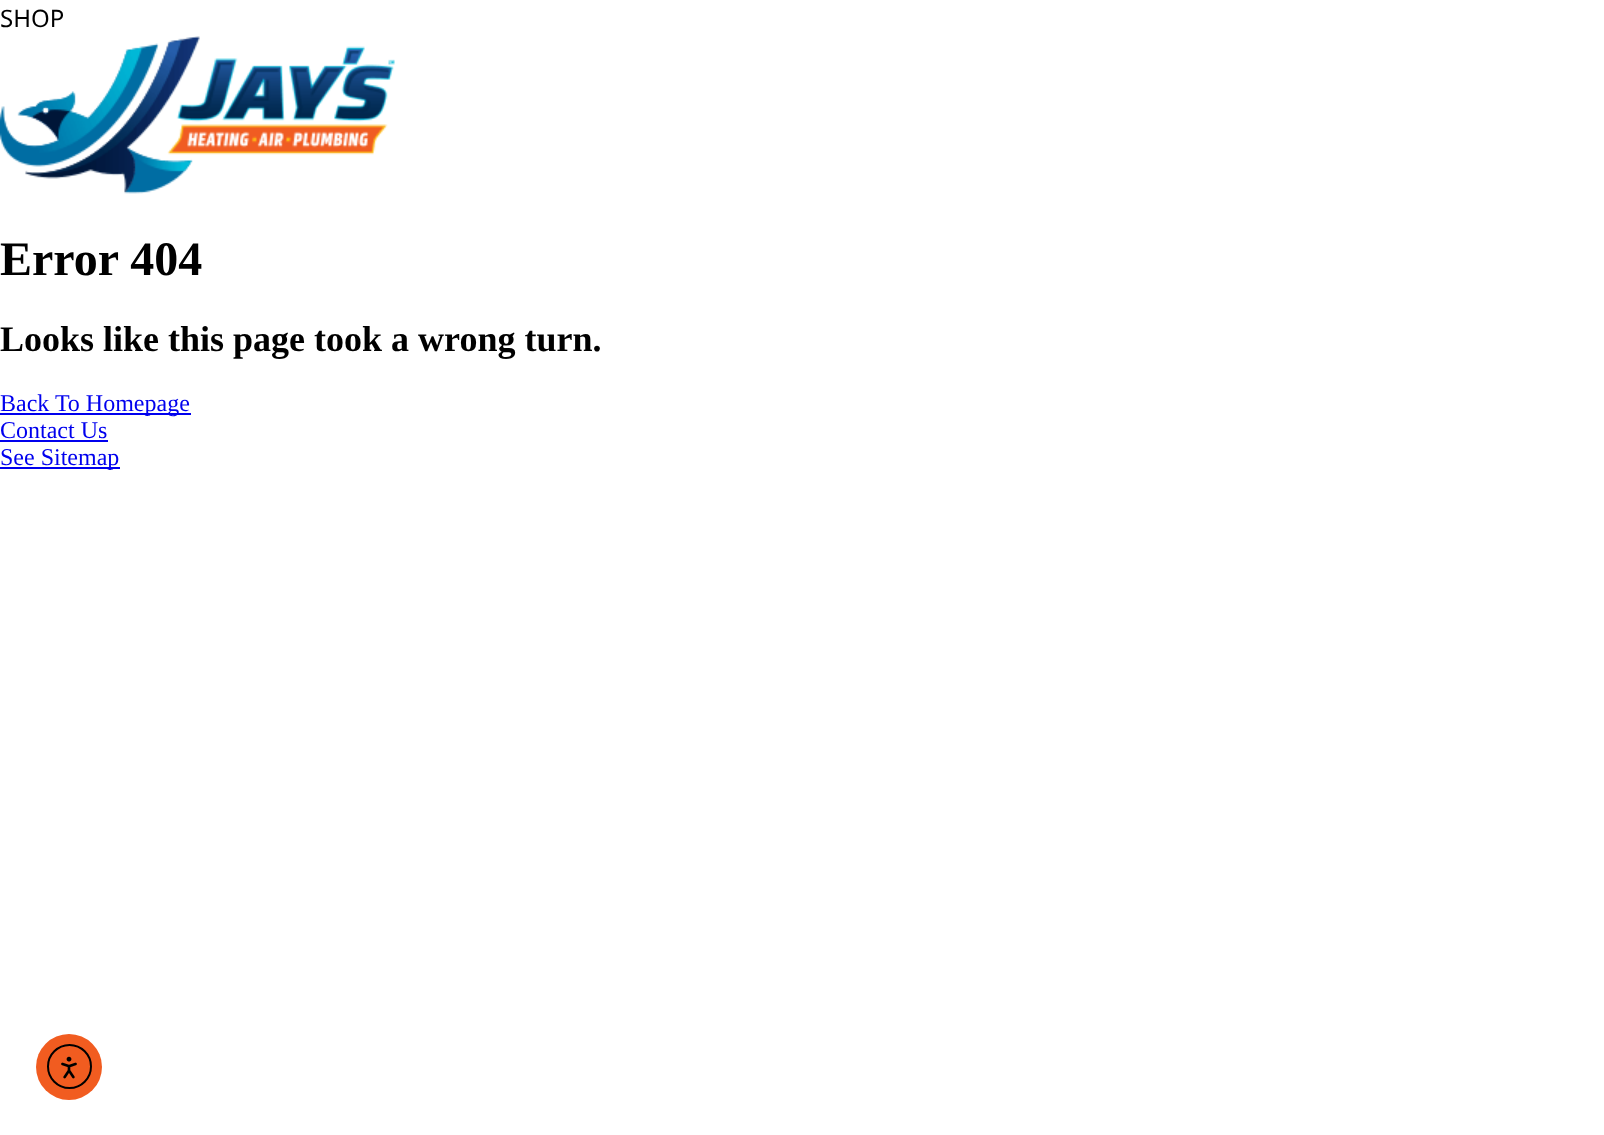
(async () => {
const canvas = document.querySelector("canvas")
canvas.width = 1604
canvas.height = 1135
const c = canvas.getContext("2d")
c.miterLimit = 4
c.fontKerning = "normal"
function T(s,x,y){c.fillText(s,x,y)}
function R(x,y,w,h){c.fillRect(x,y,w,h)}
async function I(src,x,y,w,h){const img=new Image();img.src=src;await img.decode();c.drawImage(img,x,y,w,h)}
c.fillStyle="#fff"
R(0,0,1604,1135)
c.font="24px Noto Sans"
c.fillStyle="#000"
T("SHOP",0,27)
await I("1.png",0,36,395,158)
c.font="bold 48px Liberation Serif"
T("Error 404",0,275)
c.font="bold 36px Liberation Serif"
T("Looks like this page took a wrong turn.",0,351)
c.fillStyle="#00e"
R(0,413,191,2)
c.font="24px Liberation Serif"
T("Back To Homepage",0,411)
T("Contact Us",0,438)
R(0,440,108,2)
R(0,467,120,2)
T("See Sitemap",0,465)
c.fillStyle="#f15c20"
c.beginPath()
c.arc(69,1067,33,0,7)
c.fill()
c.beginPath()
c.arc(69.5,1066.5,21.5,0,7)
c.strokeStyle="#000"
c.lineWidth=2
c.stroke()
await I("2.png",61,1056,16,23)
})()
